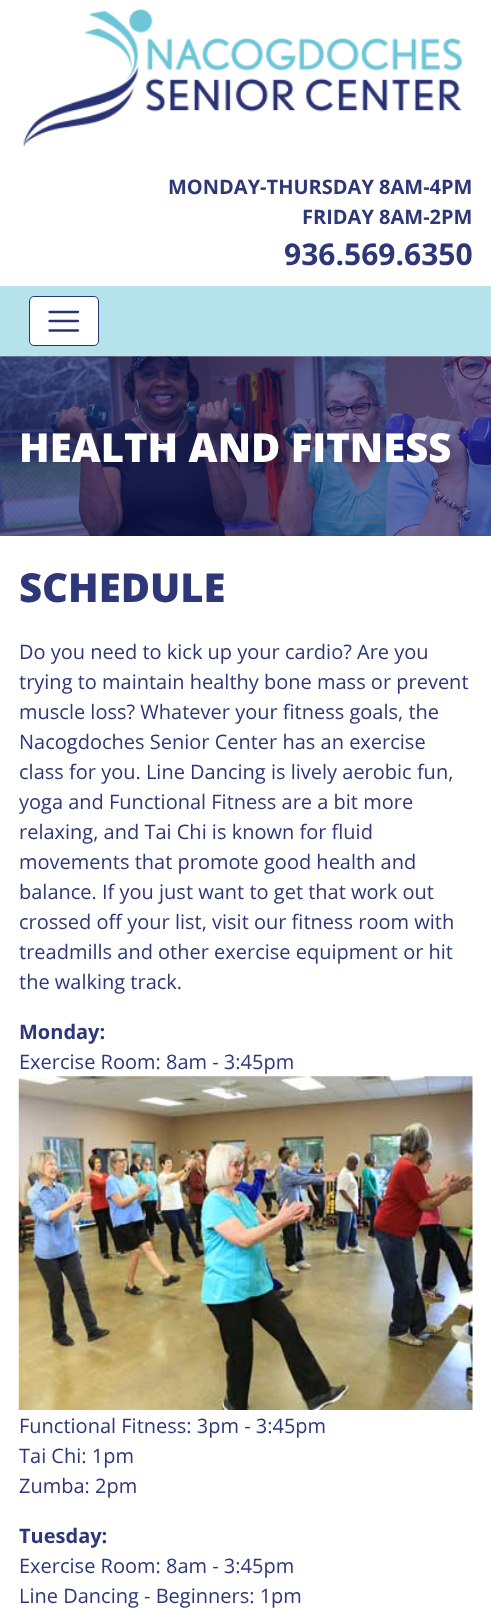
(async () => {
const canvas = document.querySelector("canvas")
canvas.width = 491
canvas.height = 1610
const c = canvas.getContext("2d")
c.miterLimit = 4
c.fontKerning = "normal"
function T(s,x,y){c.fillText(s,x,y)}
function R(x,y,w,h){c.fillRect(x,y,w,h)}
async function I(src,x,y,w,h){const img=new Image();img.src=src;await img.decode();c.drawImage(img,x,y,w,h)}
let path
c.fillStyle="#fff"
R(0,0,491,1610)
await I("1.png",23,9,439,138)
c.font="bold 20px Open Sans"
c.fillStyle="#2e3777"
T("MONDAY-THURSDAY 8AM-4PM",168,194)
T("FRIDAY 8AM-2PM",302,224)
c.font="bold 30px Open Sans"
T("936.569.6350",284,265)
c.fillStyle="#b5e2eb"
R(0,286,491,70)
c.fillStyle="#fff"
c.beginPath()
c.roundRect(29.5,296.5,69,49,4.5)
c.fill()
c.strokeStyle="#293274"
c.stroke()
path = new Path2D("M49.5 312h28.5m-28.5 9h28.5m-28.5 9.5h28.5")
c.lineWidth=2.3
c.lineCap="round"
c.stroke(path)
await I("2.png",0,356,491,180)
c.font="800 40px Open Sans"
T("HEALTH AND FITNESS",19,462)
c.fillStyle="#2e3777"
T("SCHEDULE",19,602)
c.font="20px Open Sans"
T("Do you need to kick up your cardio? Are you",19,659)
T("trying to maintain healthy bone mass or prevent",19,689)
T("muscle loss? Whatever your fitness goals, the",19,719)
T("Nacogdoches Senior Center has an exercise",19,749)
T("class for you. Line Dancing is lively aerobic fun,",19,779)
T("yoga and Functional Fitness are a bit more",19,809)
T("relaxing, and Tai Chi is known for fluid",19,839)
T("movements that promote good health and",19,869)
T("balance. If you just want to get that work out",19,899)
T("crossed off your list, visit our fitness room with",19,929)
T("treadmills and other exercise equipment or hit",19,959)
T("the walking track.",19,989)
c.font="bold 20px Open Sans"
T("Monday:",19,1039)
c.font="20px Open Sans"
T("Exercise Room: 8am - 3:45pm",19,1069)
await I("3.png",18,1076,455,334)
T("Functional Fitness: 3pm - 3:45pm",19,1433)
T("Tai Chi: 1pm",19,1463)
T("Zumba: 2pm",19,1493)
c.font="bold 20px Open Sans"
T("Tuesday:",19,1543)
c.font="20px Open Sans"
T("Exercise Room: 8am - 3:45pm",19,1573)
T("Line Dancing - Beginners: 1pm",19,1603)
})()
